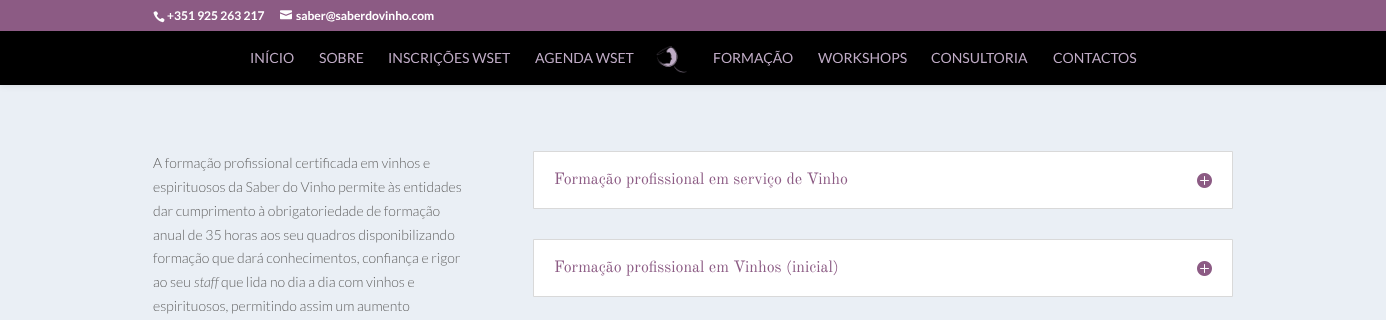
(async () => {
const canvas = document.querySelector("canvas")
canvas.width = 1386
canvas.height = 320
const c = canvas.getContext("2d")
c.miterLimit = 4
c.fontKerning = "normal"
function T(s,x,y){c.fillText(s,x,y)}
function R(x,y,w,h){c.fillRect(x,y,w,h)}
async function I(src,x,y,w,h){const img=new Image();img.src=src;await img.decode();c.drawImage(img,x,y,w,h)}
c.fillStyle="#eaeff5"
R(0,0,1386,320)
c.fillStyle="#0000001a"
c.filter="blur(3.5px)"
c.beginPath()
c.rect(0,31,1386,54)
c.fill()
c.filter="none"
c.fillStyle="#8c5b84"
R(0,0,1386,31)
await I("1.png",153,11,12,12)
c.font="bold 12px Lato"
c.fillStyle="#fff"
T("+351 925 263 217",167,20)
await I("2.png",280,10,12,10)
T("saber@saberdovinho.com",296,20)
c.fillStyle="#000"
R(0,31,1386,54)
c.font="14px Lato"
c.fillStyle="#bfabc5"
T("INÍCIO",250,63)
T("SOBRE",319,63)
T("INSCRIÇÕES WSET",388,63)
T("AGENDA WSET",535,63)
await I("3.png",656,46,31,27)
T("FORMAÇÃO",713,63)
T("WORKSHOPS",818,63)
T("CONSULTORIA",931,63)
T("CONTACTOS",1053,63)
c.font="300 14px Lato"
c.fillStyle="#666"
T("A formação profissional certificada em vinhos e",153,168)
T("espirituosos da Saber do Vinho permite às entidades",153,192)
T("dar cumprimento à obrigatoriedade de formação",153,216)
T("anual de 35 horas aos seu quadros disponibilizando",153,240)
T("formação que dará conhecimentos, confiança e rigor",153,263)
T("ao seu",153,287)
c.font="italic 300 14px Lato"
T("staff",194,287)
c.font="300 14px Lato"
T("que lida no dia a dia com vinhos e",221,287)
T("espirituosos, permitindo assim um aumento",153,311)
c.fillStyle="#fff"
c.beginPath()
c.rect(533.5,151.5,699,57)
c.fill()
c.strokeStyle="#d9d9d9"
c.stroke()
c.font="16px Old Standard TT"
c.fillStyle="#8c5b84"
T("Formação profissional em serviço de Vinho",554,184)
await I("4.png",1197,173,15,15)
c.fillStyle="#fff"
c.beginPath()
c.rect(533.5,239.5,699,57)
c.fill()
c.stroke()
c.fillStyle="#8c5b84"
T("Formação profissional em Vinhos (inicial)",554,272)
await I("4.png",1197,261,15,15)
})()
